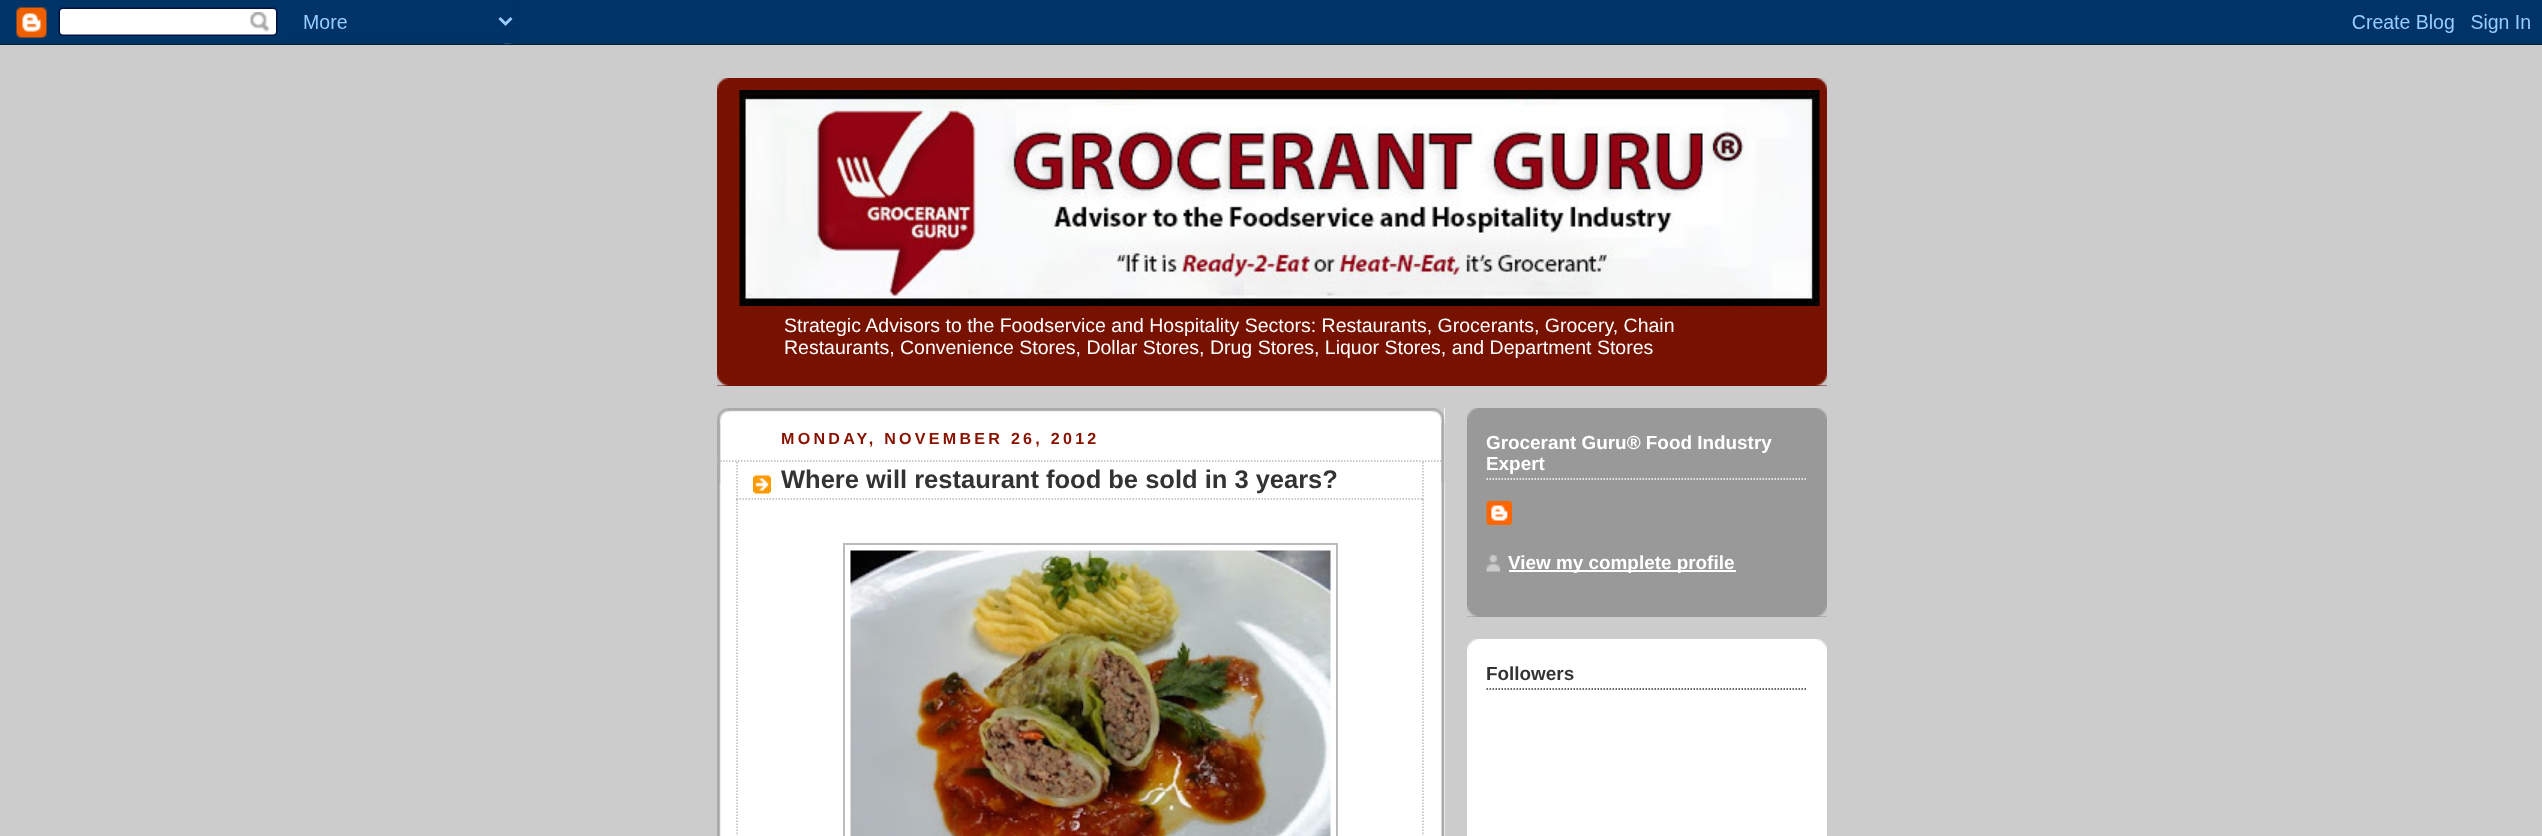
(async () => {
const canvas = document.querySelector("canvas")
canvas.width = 2542
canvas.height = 836
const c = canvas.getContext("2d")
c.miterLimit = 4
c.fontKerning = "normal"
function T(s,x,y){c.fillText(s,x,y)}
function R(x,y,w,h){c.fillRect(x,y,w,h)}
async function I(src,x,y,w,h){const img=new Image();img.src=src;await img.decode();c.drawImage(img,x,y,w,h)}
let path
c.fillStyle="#ccc"
R(0,0,2542,836)
await I("1.png",0,0,2542,45)
c.fillStyle="#710"
R(717,78,1110,308)
await I("2.png",717,78,1110,12)
await I("3.png",717,373,1110,13)
await I("4.png",739,90,1081,216)
c.font="19.5px Liberation Sans"
c.fillStyle="#fff"
T("Strategic Advisors to the Foodservice and Hospitality Sectors: Restaurants, Grocerants, Grocery, Chain",784,332)
T("Restaurants, Convenience Stores, Dollar Stores, Drug Stores, Liquor Stores, and Department Stores",784,354)
R(719,408,726,428)
await I("5.png",717,408,728,75)
await I("6.png",717,423,728,413)
c.letterSpacing="3.25px"
c.font="bold 16.1px Liberation Sans"
c.fillStyle="#810"
T("MONDAY, NOVEMBER 26, 2012",781,444)
path = new Path2D("M717 461h726")
c.strokeStyle="#bbb"
c.lineWidth=1.5
c.setLineDash([1.5,1.5])
c.stroke(path)
await I("7.png",753,475,18,19)
path = new Path2D("M1423 462v37.5")
c.stroke(path)
path = new Path2D("M736.5 499h687")
c.stroke(path)
path = new Path2D("M737 462v37.5")
c.stroke(path)
c.letterSpacing="0px"
c.font="bold 25.5px Liberation Sans"
c.fillStyle="#333"
T("Where will restaurant food be sold in 3 years?",781,488)
path = new Path2D("M1423 499.5v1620")
c.stroke(path)
path = new Path2D("M737 499.5v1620")
c.stroke(path)
c.lineWidth=2
c.setLineDash([])
c.strokeRect(844,544,493,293)
await I("8.png",850,550,481,286)
c.fillStyle="#999"
R(1467,408,360,209)
await I("9.png",1467,606,360,11)
await I("10.png",1467,408,360,11)
path = new Path2D("M1486.5 479h321")
c.strokeStyle="#fff"
c.lineWidth=1.5
c.setLineDash([1.5,1.5])
c.stroke(path)
c.font="bold 18.9px Liberation Sans"
c.fillStyle="#fff"
T("Grocerant Guru® Food Industry",1486,449)
T("Expert",1486,470)
await I("11.png",1486,501,26,24)
await I("12.png",1486,555,14,17)
R(1509,570,227,2)
T("View my complete profile",1508,569)
R(1467,639,360,197)
await I("13.png",1467,639,360,11)
path = new Path2D("M1486.5 689h321")
c.strokeStyle="#333"
c.stroke(path)
c.fillStyle="#333"
T("Followers",1486,680)
})()
